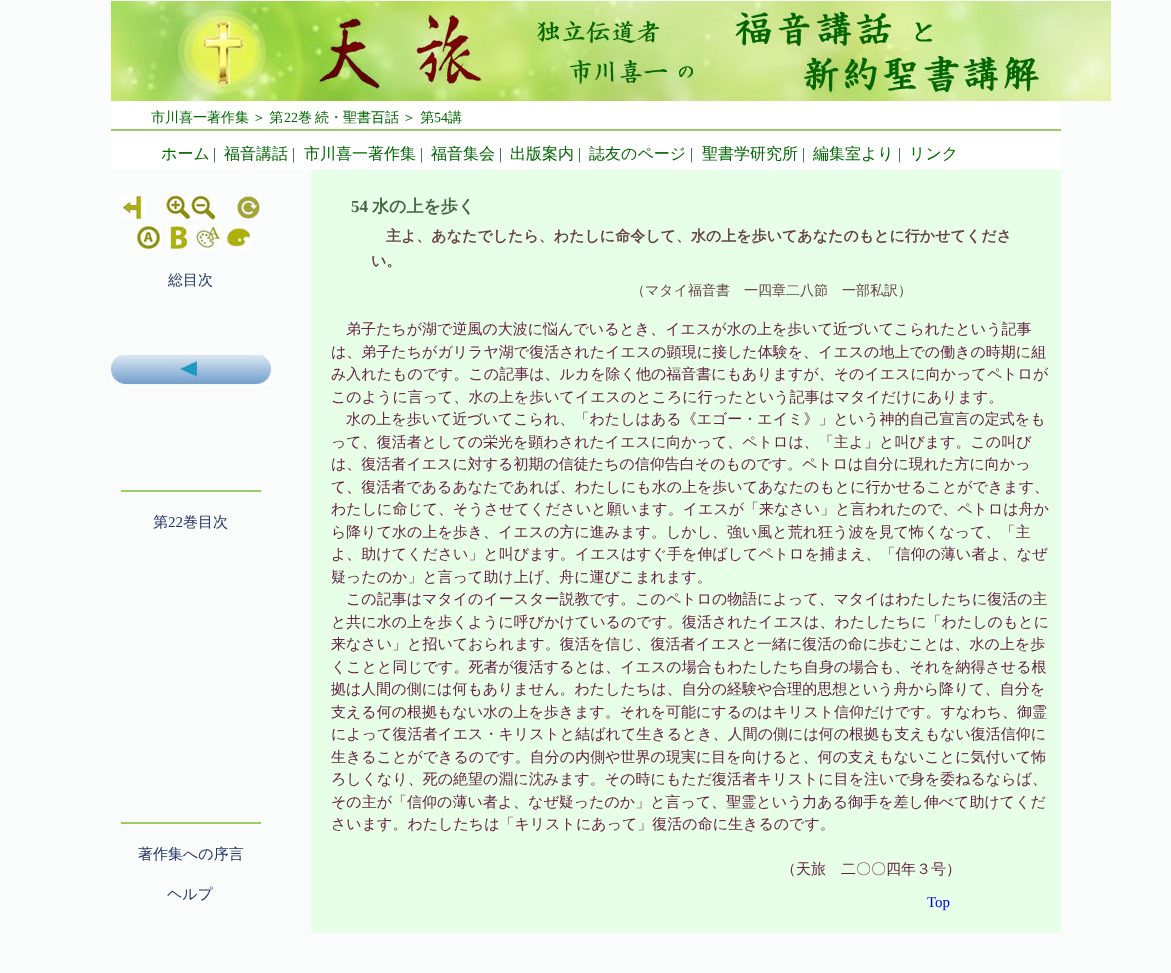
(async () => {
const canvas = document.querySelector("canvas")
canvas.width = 1171
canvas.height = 973
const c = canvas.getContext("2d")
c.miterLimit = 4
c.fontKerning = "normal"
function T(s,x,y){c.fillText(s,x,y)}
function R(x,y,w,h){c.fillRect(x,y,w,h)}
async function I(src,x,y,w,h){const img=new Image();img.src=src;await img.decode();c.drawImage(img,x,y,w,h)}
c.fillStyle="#fafcfc"
R(0,0,1171,973)
c.fillStyle="#fff"
R(111,101,950,68)
await I("1.png",111,1,1000,100)
c.font="500 14px WenQuanYi Zen Hei"
c.fillStyle="#060"
T("市川喜一著作集",151,122)
c.wordSpacing="-1px"
T("＞ 第",252,122)
c.wordSpacing="0px"
c.font="14px Liberation Serif"
T("22",284,122)
c.font="500 14px WenQuanYi Zen Hei"
T("巻",298,122)
T("続・聖書百話",315,122)
T("＞ 第",402,122)
c.font="14px Liberation Serif"
T("54",434,122)
c.font="500 14px WenQuanYi Zen Hei"
T("講",448,122)
c.fillStyle="#99cc67"
R(111,129,950,2)
c.font="500 16px WenQuanYi Zen Hei"
c.fillStyle="#060"
T("ホーム",161,159)
c.font="16px Liberation Serif"
c.fillStyle="#246"
T("|",213,159)
c.font="500 16px WenQuanYi Zen Hei"
c.fillStyle="#060"
T("福音講話",224,159)
c.font="16px Liberation Serif"
c.fillStyle="#246"
T("|",292,159)
c.font="500 16px WenQuanYi Zen Hei"
c.fillStyle="#060"
T("市川喜一著作集",304,159)
c.font="16px Liberation Serif"
c.fillStyle="#246"
T("|",420,159)
c.font="500 16px WenQuanYi Zen Hei"
c.fillStyle="#060"
T("福音集会",431,159)
c.font="16px Liberation Serif"
c.fillStyle="#246"
T("|",499,159)
c.font="500 16px WenQuanYi Zen Hei"
c.fillStyle="#060"
T("出版案内",510,159)
c.font="16px Liberation Serif"
T("|",578,159)
c.font="500 16px WenQuanYi Zen Hei"
T("誌友のページ",589,159)
c.font="16px Liberation Serif"
c.fillStyle="#246"
T("|",690,159)
c.font="500 16px WenQuanYi Zen Hei"
c.fillStyle="#060"
T("聖書学研究所",702,159)
c.font="16px Liberation Serif"
c.fillStyle="#246"
T("|",802,159)
c.font="500 16px WenQuanYi Zen Hei"
c.fillStyle="#060"
T("編集室より",813,159)
c.font="16px Liberation Serif"
c.fillStyle="#246"
T("|",898,159)
c.font="500 16px WenQuanYi Zen Hei"
c.fillStyle="#060"
T("リンク",909,159)
await I("2.png",121,195,25,25)
await I("3.png",166,195,25,25)
await I("4.png",191,195,25,25)
await I("5.png",236,195,25,25)
await I("6.png",136,225,25,25)
await I("7.png",166,225,25,25)
await I("8.png",196,225,25,25)
await I("9.png",226,225,25,25)
c.font="500 15px WenQuanYi Zen Hei"
c.fillStyle="#236"
T("総目次",168,285)
await I("10.png",111,355,160,30)
c.fillStyle="#99cc67"
R(121,490,140,2)
c.fillStyle="#236"
T("第",153,527)
c.font="15px Liberation Serif"
T("22",168,527)
c.font="500 15px WenQuanYi Zen Hei"
T("巻目次",183,527)
c.fillStyle="#99cc67"
R(121,822,140,2)
c.fillStyle="#236"
T("著作集への序言",138,859)
T("ヘルプ",167,899)
c.fillStyle="#e6ffe6"
R(311,170,750,763)
c.font="bold 17px Liberation Serif"
c.fillStyle="#464"
T("54",351,212)
c.font="bold 17px WenQuanYi Zen Hei"
T("水の上を歩く",372,212)
c.font="bold 15px WenQuanYi Zen Hei"
c.fillStyle="#644"
T("主よ、あなたでしたら、わたしに命令して、水の上を歩いてあなたのもとに行かせてくださ",386,241)
T("い。",371,266)
c.font="500 14px WenQuanYi Zen Hei"
T("（マタイ福音書　一四章二八節　一部私訳）",631,295)
c.font="500 15px WenQuanYi Zen Hei"
c.fillStyle="#624"
T("弟子たちが湖で逆風の大波に悩んでいるとき、イエスが水の上を歩いて近づいてこられたという記事",346,334)
T("は、弟子たちがガリラヤ湖で復活されたイエスの顕現に接した体験を、イエスの地上での働きの時期に組",331,357)
T("み入れたものです。この記事は、ルカを除く他の福音書にもありますが、そのイエスに向かってペトロが",331,379)
T("このように言って、水の上を歩いてイエスのところに行ったという記事はマタイだけにあります。",331,402)
T("水の上を歩いて近づいてこられ、「わたしはある《エゴー・エイミ》」という神的自己宣言の定式をも",346,424)
T("って、復活者としての栄光を顕わされたイエスに向かって、ペトロは、「主よ」と叫びます。この叫び",331,447)
T("は、復活者イエスに対する初期の信徒たちの信仰告白そのものです。ペトロは自分に現れた方に向かっ",331,469)
T("て、復活者であるあなたであれば、わたしにも水の上を歩いてあなたのもとに行かせることができます、",331,492)
T("わたしに命じて、そうさせてくださいと願います。イエスが「来なさい」と言われたので、ペトロは舟か",331,514)
T("ら降りて水の上を歩き、イエスの方に進みます。しかし、強い風と荒れ狂う波を見て怖くなって、「主",331,537)
T("よ、助けてください」と叫びます。イエスはすぐ手を伸ばしてペトロを捕まえ、「信仰の薄い者よ、なぜ",331,559)
T("疑ったのか」と言って助け上げ、舟に運びこまれます。",331,582)
T("この記事はマタイのイースター説教です。このペトロの物語によって、マタイはわたしたちに復活の主",346,604)
T("と共に水の上を歩くように呼びかけているのです。復活されたイエスは、わたしたちに「わたしのもとに",331,627)
T("来なさい」と招いておられます。復活を信じ、復活者イエスと一緒に復活の命に歩むことは、水の上を歩",331,649)
T("くことと同じです。死者が復活するとは、イエスの場合もわたしたち自身の場合も、それを納得させる根",331,672)
T("拠は人間の側には何もありません。わたしたちは、自分の経験や合理的思想という舟から降りて、自分を",331,694)
T("支える何の根拠もない水の上を歩きます。それを可能にするのはキリスト信仰だけです。すなわち、御霊",331,717)
T("によって復活者イエス・キリストと結ばれて生きるとき、人間の側には何の根拠も支えもない復活信仰に",331,739)
T("生きることができるのです。自分の内側や世界の現実に目を向けると、何の支えもないことに気付いて怖",331,762)
T("ろしくなり、死の絶望の淵に沈みます。その時にもただ復活者キリストに目を注いで身を委ねるならば、",331,784)
T("その主が「信仰の薄い者よ、なぜ疑ったのか」と言って、聖霊という力ある御手を差し伸べて助けてくだ",331,807)
T("さいます。わたしたちは「キリストにあって」復活の命に生きるのです。",331,829)
T("（天旅　二〇〇四年３号）",781,874)
c.font="15px Liberation Serif"
c.fillStyle="#00e"
T("Top",927,907)
})()
